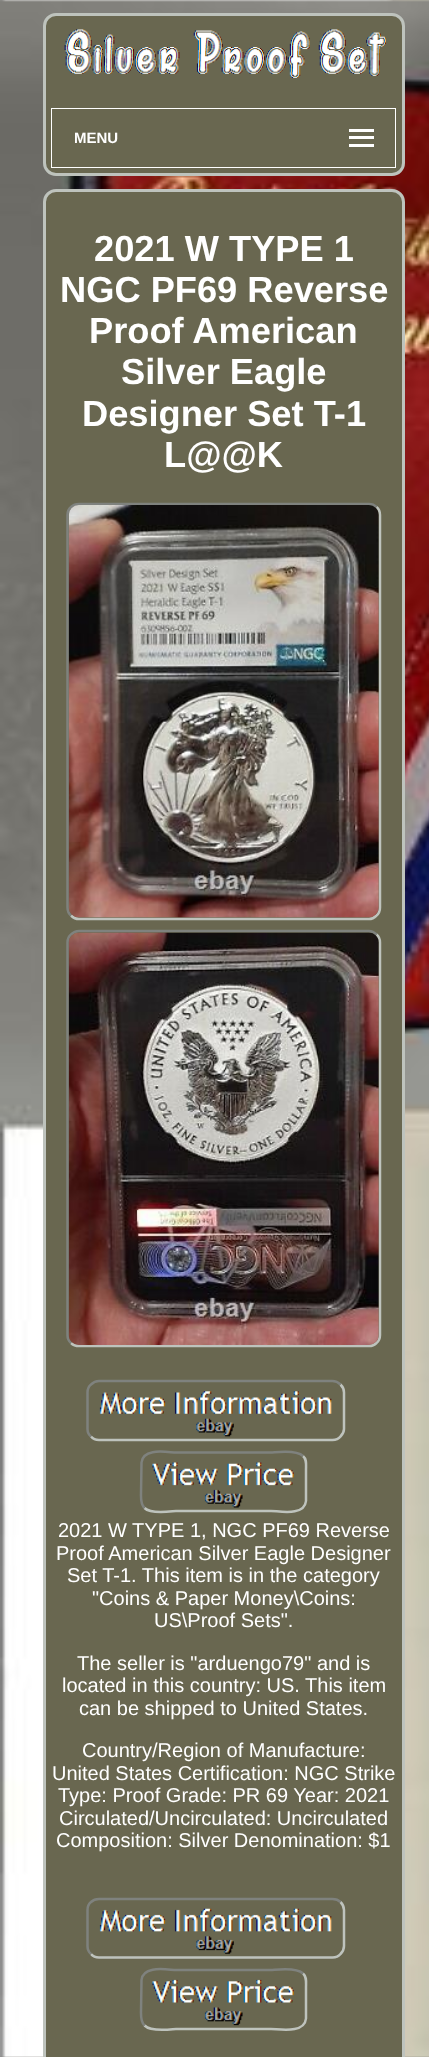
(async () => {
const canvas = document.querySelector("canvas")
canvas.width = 429
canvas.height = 2057
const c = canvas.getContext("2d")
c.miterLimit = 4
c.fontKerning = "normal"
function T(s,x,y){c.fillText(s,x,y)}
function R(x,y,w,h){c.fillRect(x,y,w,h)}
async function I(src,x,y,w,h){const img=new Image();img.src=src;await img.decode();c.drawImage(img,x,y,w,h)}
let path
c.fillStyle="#fff"
R(0,0,429,2057)
await I("1.png",0,0,429,2057)
c.fillStyle="#696750"
c.beginPath()
c.roundRect(44.5,14.5,359,160,11.5)
c.fill()
c.strokeStyle="#bec3bd"
c.lineWidth=3
c.stroke()
await I("2.png",64,29,322,49)
c.strokeStyle="#fff"
c.lineWidth=1
c.strokeRect(51.5,108.5,344,59)
c.fillStyle="#fff"
R(349,129,25,3)
c.font="bold 15px Liberation Sans"
T("MENU",74,143)
R(349,136,25,3)
R(349,144,25,3)
c.fillStyle="#696750"
c.beginPath()
c.roundRect(44.5,190.5,359,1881,11.5)
c.fill()
c.strokeStyle="#bec3bd"
c.lineWidth=3
c.stroke()
c.font="bold 36.25px Liberation Sans"
c.fillStyle="#fff"
T("2021 W TYPE 1",94,261)
T("NGC PF69 Reverse",60,302)
T("Proof American",89,343)
T("Silver Eagle",121,384)
T("Designer Set T-1",82,426)
T("L@@K",164,467)
path = new Path2D("M376.5 507c2.5 2 3.5 5 3.5 8v392.5c0 3-1 6-3.5 8c-2 2-5 3.5-7.5 3.5h-290c-3 0-6-1.5-8-3.5")
c.lineWidth=2.5
c.stroke(path)
path = new Path2D("M71 915.5c-2.5-2-3.5-5-3.5-8v-392.5c0-3 1-6 3.5-8c2-2 5-3 8-3h290c2.5 0 5.5 1 7.5 3")
c.strokeStyle="#7f827e"
c.stroke(path)
await I("3.png",68,505,311,413)
path = new Path2D("M376.5 934.5c2.5 2 3.5 5 3.5 8v392.5c0 3-1 6-3.5 8c-2 2-5 3-7.5 3h-290c-3 0-6-1-8-3")
c.strokeStyle="#bec3bd"
c.stroke(path)
path = new Path2D("M71 1343c-2.5-2-3.5-5-3.5-8v-392.5c0-3 1-6 3.5-8c2-2 5-3.5 8-3.5h290c2.5 0 5.5 1.5 7.5 3.5")
c.strokeStyle="#7f827e"
c.stroke(path)
await I("4.png",68,932,311,413)
path = new Path2D("M340.5 1384.5c2 2 3.5 5 3.5 8v36.5c0 2.5-1.5 5.5-3.5 7.5c-2 2.5-5 3.5-8 3.5h-233.5c-3 0-6-1-8-3.5")
c.strokeStyle="#bec3bd"
c.stroke(path)
path = new Path2D("M91 1436.5c-2.5-2-3.5-5-3.5-7.5v-36.5c0-3 1-6 3.5-8c2-2 5-3.5 8-3.5h233.5c3 0 6 1.5 8 3.5")
c.strokeStyle="#7f827e"
c.stroke(path)
await I("5.png",99,1391,233,46)
path = new Path2D("M303 1456c4 3.5 3 8.5 3 14v31c-1.5 15.5-27 10-35 10h-95c-3.5 0-24.5 4-31.5-3")
c.strokeStyle="#bec3bd"
c.stroke(path)
path = new Path2D("M144.5 1508c-4-4-3.5-9-3.5-14l.5-31.5c1.5-15.5 27-10 34.5-10h95c4 0 25-3.5 32 3.5")
c.strokeStyle="#7f827e"
c.stroke(path)
await I("6.png",152,1462,142,46)
c.font="20px Liberation Sans"
T("2021 W TYPE 1, NGC PF69 Reverse",58,1537)
T("Proof American Silver Eagle Designer",56,1560)
T("Set T-1. This item is in the category",67,1582)
T("\"Coins & Paper Money\\Coins:",92,1605)
T("US\\Proof Sets\".",154,1627)
T("The seller is \"arduengo79\" and is",77,1670)
T("located in this country: US. This item",62,1692)
T("can be shipped to United States.",79,1715)
T("Country/Region of Manufacture:",82,1757)
T("United States Certification: NGC Strike",52,1780)
T("Type: Proof Grade: PR 69 Year: 2021",58,1802)
T("Circulated/Uncirculated: Uncirculated",59,1825)
T("Composition: Silver Denomination: $1",56,1847)
path = new Path2D("M340.5 1902c2 2 3.5 5 3.5 8v36c0 3-1.5 6-3.5 8c-2 2.5-5 3.5-8 3.5h-233.5c-3 0-6-1-8-3.5")
c.strokeStyle="#bec3bd"
c.stroke(path)
path = new Path2D("M91 1954c-2.5-2-3.5-5-3.5-8v-36c0-3 1-6 3.5-8c2-2 5-3 8-3h233.5c3 0 6 1 8 3")
c.strokeStyle="#7f827e"
c.stroke(path)
await I("7.png",99,1908,233,46)
path = new Path2D("M303 1973.5c4 3.5 3 8.5 3 14v31c-1.5 15.5-27 10.5-35 10.5h-95c-3.5 0-24.5 3.5-31.5-3.5")
c.strokeStyle="#bec3bd"
c.stroke(path)
path = new Path2D("M144.5 2025.5c-4-4-3.5-9-3.5-14l.5-31.5c1.5-15.5 27-10 34.5-10h95c4 0 25-3.5 32 3.5")
c.strokeStyle="#7f827e"
c.stroke(path)
await I("8.png",152,1979,142,47)
})()
